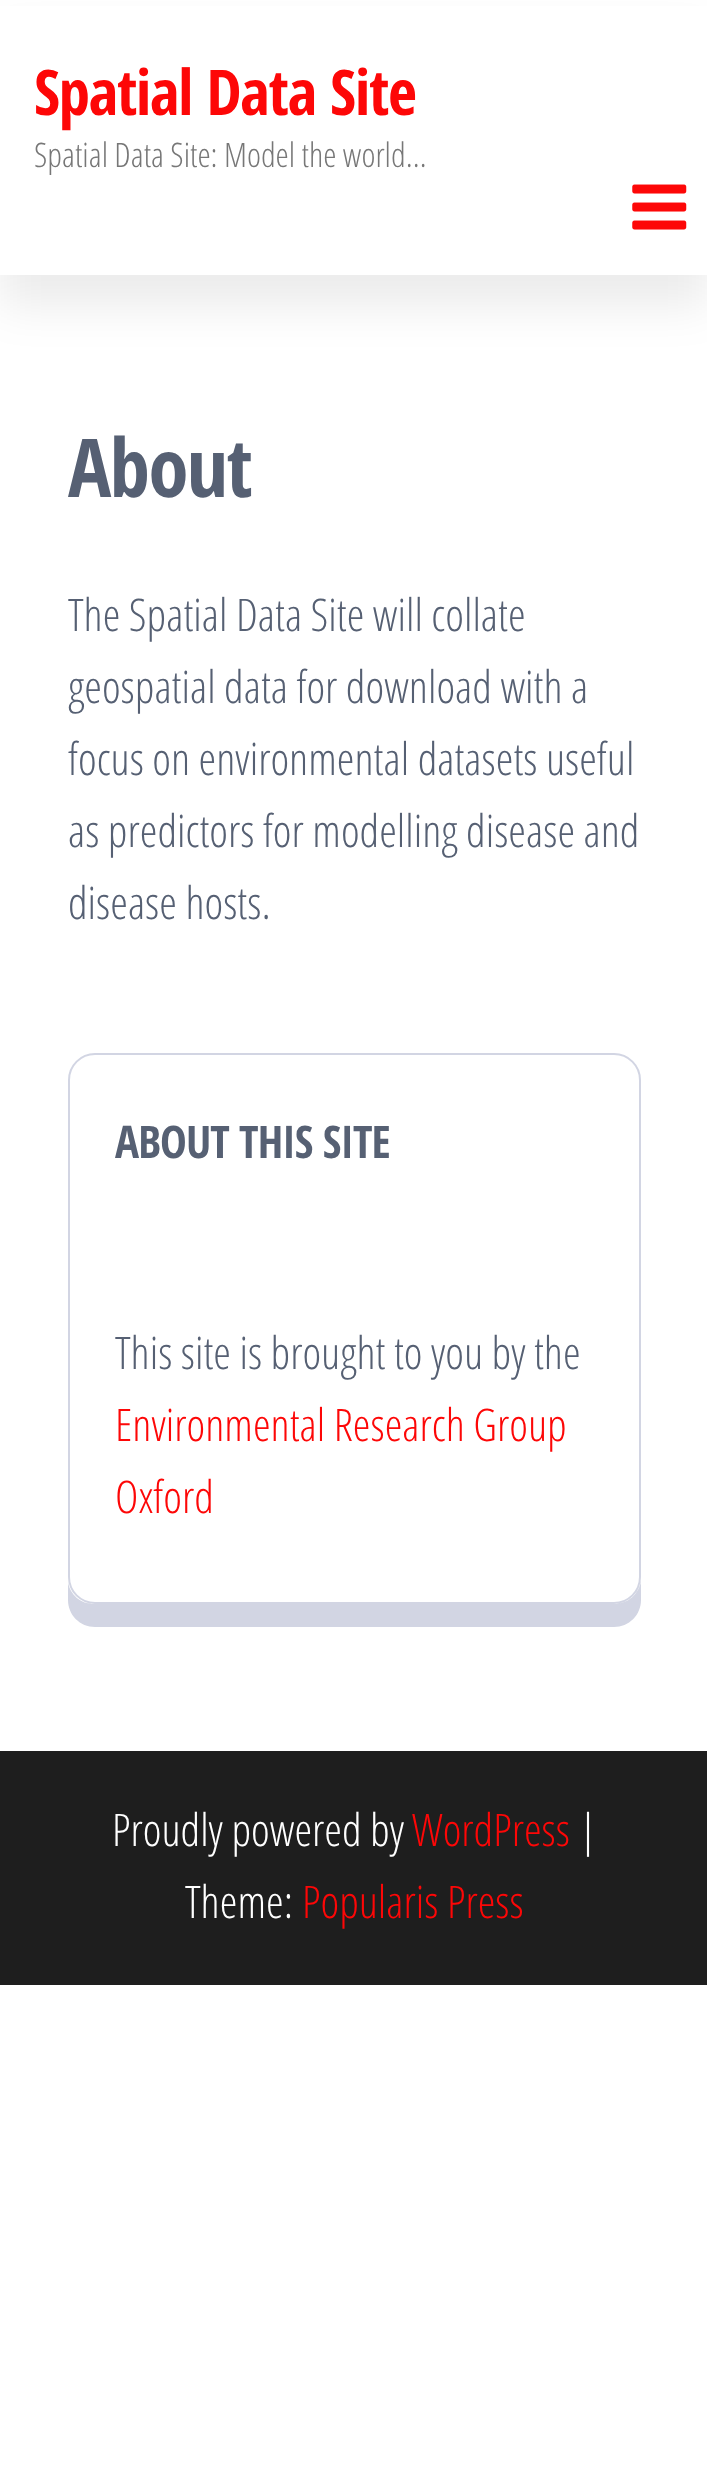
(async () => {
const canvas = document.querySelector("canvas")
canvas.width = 707
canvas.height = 2484
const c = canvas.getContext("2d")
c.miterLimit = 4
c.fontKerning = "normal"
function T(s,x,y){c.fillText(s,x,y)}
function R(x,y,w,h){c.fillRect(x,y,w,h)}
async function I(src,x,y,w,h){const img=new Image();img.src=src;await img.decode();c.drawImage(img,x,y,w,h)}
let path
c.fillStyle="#fff"
R(0,0,707,2484)
c.fillStyle="#00000014"
c.filter="blur(22.5px)"
c.beginPath()
c.rect(0,32,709,274)
c.fill()
c.filter="none"
c.fillStyle="#fff"
R(0,6,707,269)
c.letterSpacing="-1.25px"
c.font="bold 63px Open Sans Condensed"
c.fillStyle="#fd0707"
T("Spatial Data Site",34,115)
c.letterSpacing="0px"
c.font="300 33.75px Open Sans Condensed"
c.fillStyle="#777"
T("Spatial Data Site: Model the world…",34,167)
await I("1.png",632,184,55,46)
c.letterSpacing="-1.5px"
c.font="bold 81px Open Sans Condensed"
c.fillStyle="#566073"
T("About",68,497)
c.letterSpacing="0px"
c.font="300 45px Open Sans Condensed"
T("The Spatial Data Site will collate",68,631)
T("geospatial data for download with a",68,703)
T("focus on environmental datasets useful",68,775)
T("as predictors for modelling disease and",68,847)
T("disease hosts.",68,919)
c.fillStyle="#d2d5e3"
path = new Path2D("M68 1582v18c0 15 12 27 27 27h519c15 0 27-12 27-27v-19c-2 13-13 23-27 23h-520c-13 0-24-9-26-22z")
c.fill(path)
c.beginPath()
c.roundRect(69,1054,571,549,26)
c.strokeStyle="#1c2d7133"
c.lineWidth=2
c.stroke()
c.letterSpacing="-0.9px"
c.font="bold 45px Open Sans Condensed"
c.fillStyle="#566073"
T("ABOUT THIS SITE",115,1158)
c.letterSpacing="0px"
c.font="300 45px Open Sans Condensed"
T("This site is brought to you by the",115,1369)
c.fillStyle="#fd0707"
T("Environmental Research Group",115,1441)
T("Oxford",115,1513)
c.fillStyle="#1e1e1e"
R(0,1751,707,234)
c.fillStyle="#fff"
T("Proudly powered by",112,1846)
c.fillStyle="#fd0707"
T("WordPress",412,1846)
c.fillStyle="#fff"
T("|",579,1846)
T("Theme:",185,1918)
c.fillStyle="#fd0707"
T("Popularis Press",302,1918)
})()
